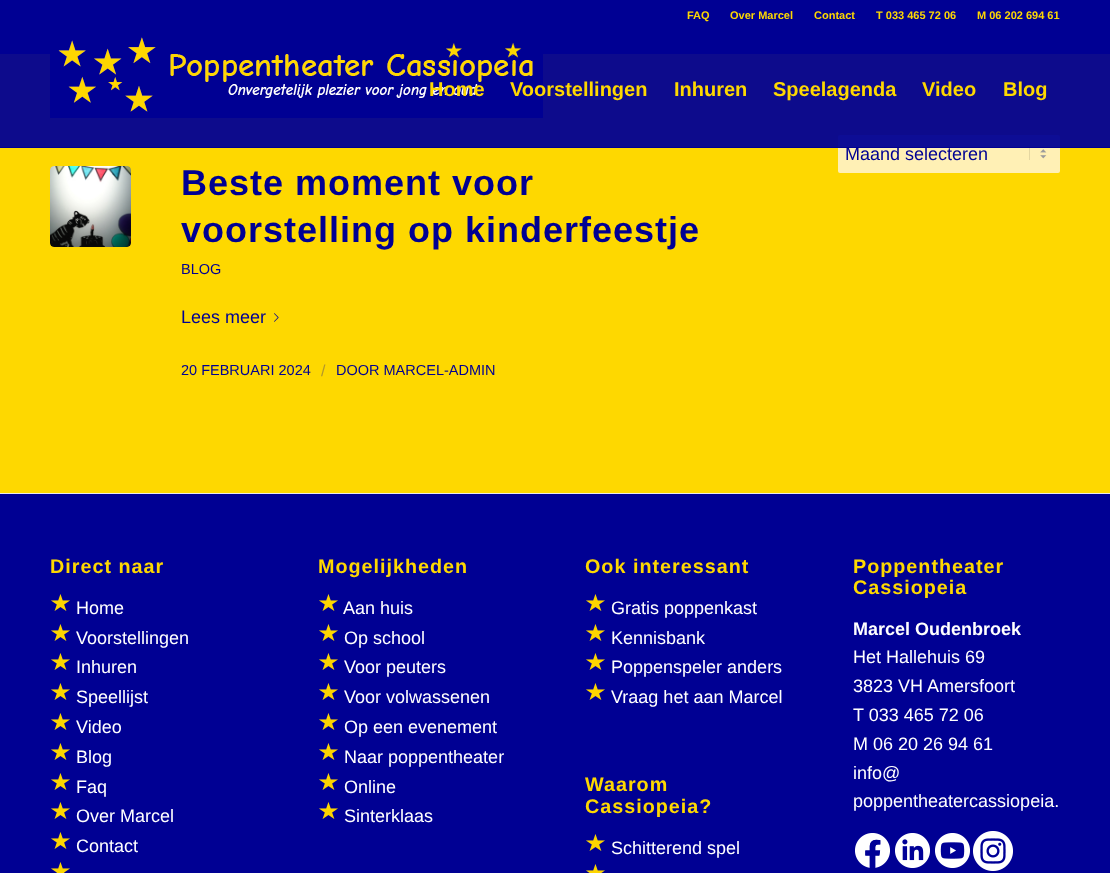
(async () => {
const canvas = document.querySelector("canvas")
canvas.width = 1110
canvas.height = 873
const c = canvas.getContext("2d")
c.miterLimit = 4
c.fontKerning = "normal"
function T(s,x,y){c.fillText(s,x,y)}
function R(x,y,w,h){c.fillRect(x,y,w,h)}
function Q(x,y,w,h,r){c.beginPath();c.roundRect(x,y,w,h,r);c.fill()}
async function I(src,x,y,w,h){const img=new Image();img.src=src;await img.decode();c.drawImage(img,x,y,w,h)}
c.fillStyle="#000093"
R(0,0,1110,873)
c.font="bold 11px Liberation Sans"
c.fillStyle="#fed800"
T("FAQ",687,19)
T("Over Marcel",730,19)
T("Contact",814,19)
T("T 033 465 72 06",876,19)
T("M 06 202 694 61",977,19)
R(0,54,1110,439)
c.fillStyle="#fff0b5"
Q(838,135,222,38,2)
c.font="18px Liberation Sans"
c.fillStyle="#000093"
T("Maand selecteren",845,160)
c.fillStyle="#000093f2"
R(0,54,1110,93)
c.fillStyle="#000093"
R(0,147,1110,1)
await I("1.png",50,37,493,81)
c.font="bold 20px Liberation Sans"
c.fillStyle="#fed800"
T("Home",429,96)
T("Voorstellingen",510,96)
T("Inhuren",674,96)
T("Speelagenda",773,96)
T("Video",922,96)
T("Blog",1003,96)
await I("2.png",1029,148,18,12)
await I("3.png",50,166,81,81)
c.letterSpacing="1px"
c.font="bold 36px Liberation Sans"
c.fillStyle="#000093"
T("Beste moment voor",181,195)
T("voorstelling op kinderfeestje",181,242)
c.letterSpacing="0px"
c.font="14.5px Liberation Sans"
T("BLOG",181,274)
c.font="18px Liberation Sans"
T("Lees meer",181,323)
await I("4.png",274,313,5,9)
c.font="14.5px Liberation Sans"
T("20 FEBRUARI 2024",181,375)
c.font="16px Liberation Sans"
c.fillStyle="#b2972c"
T("/",321,376)
c.font="14.5px Liberation Sans"
c.fillStyle="#000093"
T("DOOR MARCEL-ADMIN",336,375)
c.fillStyle="#ebebeb"
R(0,493,1110,1)
c.letterSpacing="1px"
c.font="bold 19.75px Liberation Sans"
c.fillStyle="#fed800"
T("Direct naar",50,573)
await I("5.png",51,594,19,17)
c.letterSpacing="0px"
c.font="18px Liberation Sans"
c.fillStyle="#fff"
T("Home",76,614)
await I("5.png",51,624,19,17)
T("Voorstellingen",76,644)
await I("5.png",51,653,19,17)
T("Inhuren",76,673)
await I("5.png",51,683,19,17)
T("Speellijst",76,703)
await I("5.png",51,713,19,17)
T("Video",76,733)
await I("5.png",51,743,19,17)
T("Blog",76,763)
await I("5.png",51,773,19,17)
T("Faq",76,793)
await I("5.png",51,802,19,17)
T("Over Marcel",76,822)
await I("5.png",51,832,19,17)
T("Contact",76,852)
await I("6.png",51,862,19,11)
c.letterSpacing="1px"
c.font="bold 19.75px Liberation Sans"
c.fillStyle="#fed800"
T("Mogelijkheden",318,573)
await I("5.png",319,594,19,17)
c.letterSpacing="0px"
c.font="18px Liberation Sans"
c.fillStyle="#fff"
T("Aan huis",343,614)
await I("5.png",319,624,19,17)
T("Op school",344,644)
await I("5.png",319,653,19,17)
T("Voor peuters",344,673)
await I("5.png",319,683,19,17)
T("Voor volwassenen",344,703)
await I("5.png",319,713,19,17)
T("Op een evenement",344,733)
await I("5.png",319,743,19,17)
T("Naar poppentheater",344,763)
await I("5.png",319,773,19,17)
T("Online",344,793)
await I("5.png",319,802,19,17)
T("Sinterklaas",344,822)
c.letterSpacing="1px"
c.font="bold 19.75px Liberation Sans"
c.fillStyle="#fed800"
T("Ook interessant",585,573)
await I("5.png",586,594,19,17)
c.letterSpacing="0px"
c.font="18px Liberation Sans"
c.fillStyle="#fff"
T("Gratis poppenkast",611,614)
await I("5.png",586,624,19,17)
T("Kennisbank",611,644)
await I("5.png",586,653,19,17)
T("Poppenspeler anders",611,673)
await I("5.png",586,683,19,17)
T("Vraag het aan Marcel",611,703)
c.letterSpacing="1px"
c.font="bold 19.75px Liberation Sans"
c.fillStyle="#fed800"
T("Waarom",585,791)
T("Cassiopeia?",585,813)
await I("5.png",586,834,19,17)
c.letterSpacing="0px"
c.font="18px Liberation Sans"
c.fillStyle="#fff"
T("Schitterend spel",611,854)
await I("7.png",586,864,19,9)
c.letterSpacing="1px"
c.font="bold 19.75px Liberation Sans"
c.fillStyle="#fed800"
T("Poppentheater",853,573)
T("Cassiopeia",853,594)
c.letterSpacing="0px"
c.font="bold 18px Liberation Sans"
c.fillStyle="#fff"
T("Marcel Oudenbroek",853,635)
c.font="18px Liberation Sans"
T("Het Hallehuis 69",853,663)
T("3823 VH Amersfoort",853,692)
T("T 033 465 72 06",853,721)
T("M 06 20 26 94 61",853,750)
T("info@",853,779)
T("poppentheatercassiopeia.",853,807)
await I("8.png",855,833,35,35)
await I("9.png",895,833,35,35)
await I("10.png",935,833,35,35)
await I("11.png",973,831,40,40)
})()
